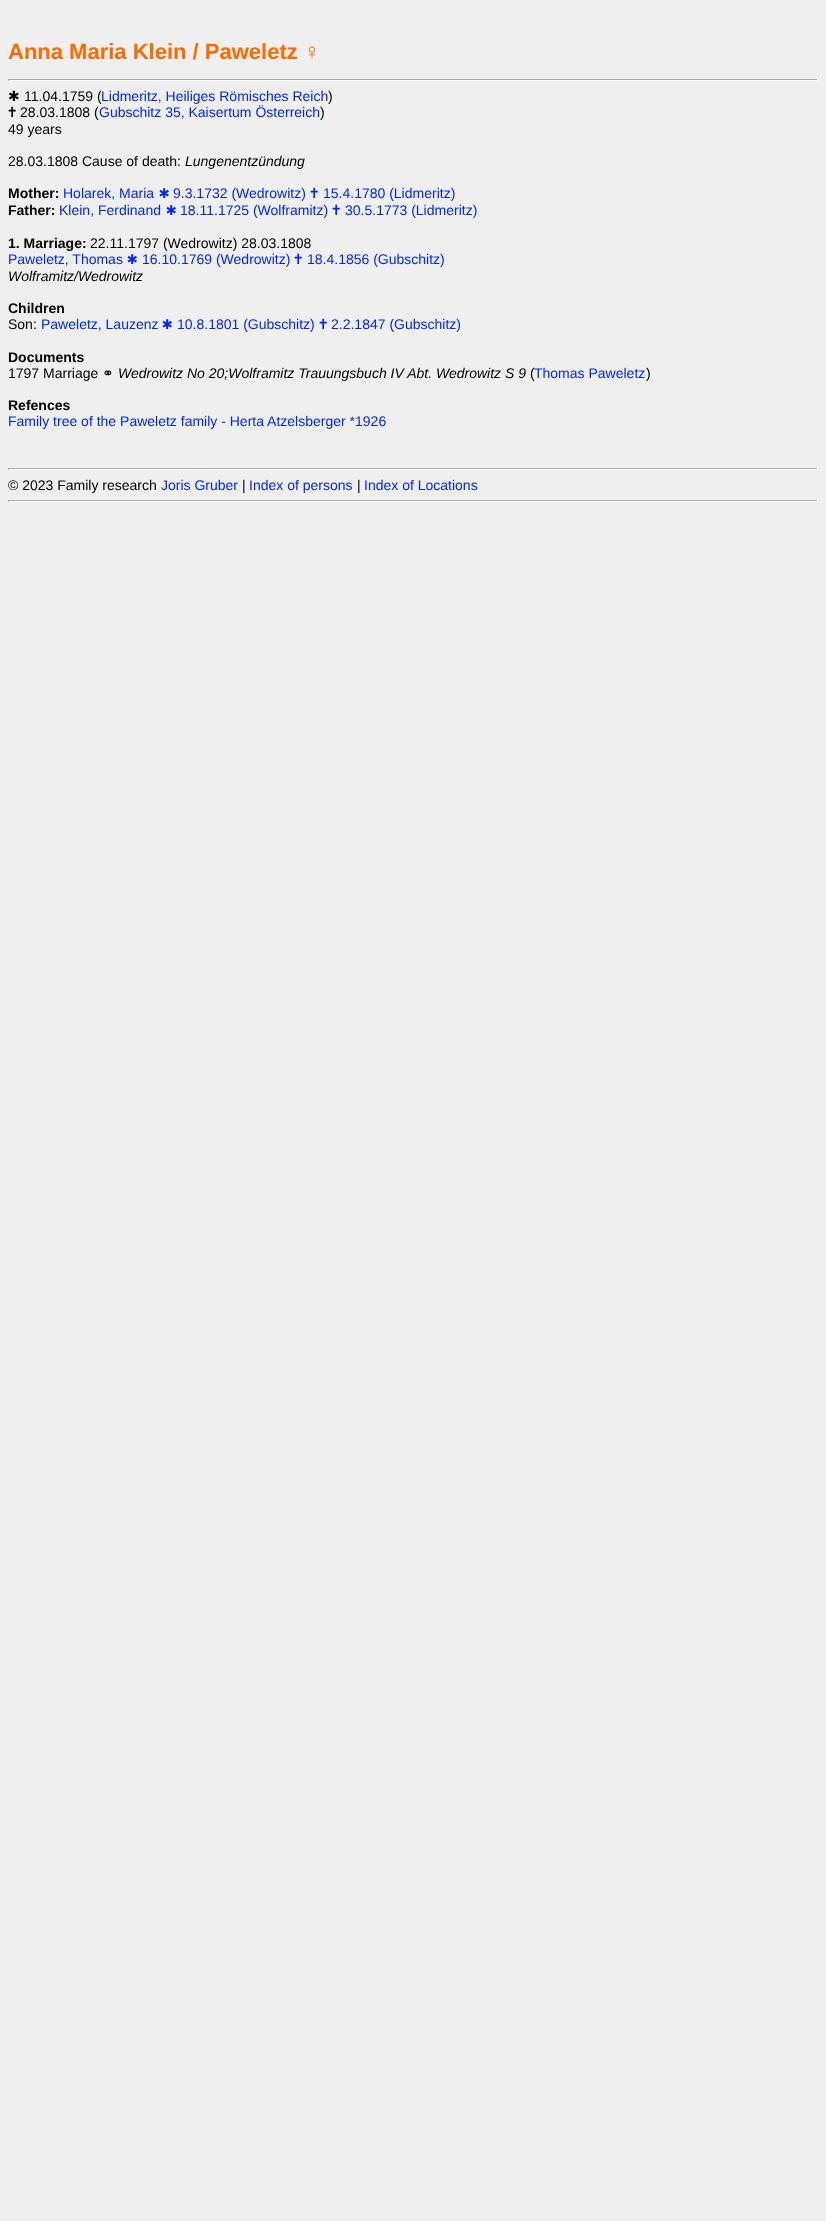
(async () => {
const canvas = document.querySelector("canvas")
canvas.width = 826
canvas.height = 2221
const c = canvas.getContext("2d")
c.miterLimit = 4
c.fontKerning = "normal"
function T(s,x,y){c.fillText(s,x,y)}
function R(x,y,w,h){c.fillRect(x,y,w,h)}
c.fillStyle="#efefef"
R(0,0,826,2221)
c.font="bold 22px Liberation Sans"
c.fillStyle="#ff6a00"
T("Anna Maria Klein / Paweletz ♀",8,59)
c.fillStyle="#aaa"
R(8,79,810,1)
c.fillStyle="#fff"
R(817,79,1,2)
R(8,80,810,1)
c.fillStyle="#aaa"
R(8,79,1,2)
c.font="14px DejaVu Sans"
c.fillStyle="#000"
T("✱",8,101)
c.font="14px Liberation Sans"
T("11.04.1759 (",24,101)
c.fillStyle="#0026ff"
T("Lidmeritz, Heiliges Römisches Reich",101,101)
c.fillStyle="#000"
T(")",328,101)
c.font="14px FreeSans"
T("🕇",8,117)
c.font="14px Liberation Sans"
T("28.03.1808 (",20,117)
c.fillStyle="#0026ff"
T("Gubschitz 35, Kaisertum Österreich",99,117)
c.fillStyle="#000"
T(")",320,117)
T("49 years",8,134)
T("28.03.1808 Cause of death:",8,166)
c.font="italic 14px Liberation Sans"
T("Lungenentzündung",185,166)
c.font="bold 14px Liberation Sans"
T("Mother:",8,198)
c.font="14px Liberation Sans"
c.fillStyle="#0026ff"
T("Holarek, Maria",63,198)
c.font="14px FreeSans"
T("✱",159,198)
c.font="14px Liberation Sans"
T("9.3.1732 (Wedrowitz)",173,198)
c.font="14px FreeSans"
T("🕇",310,198)
c.font="14px Liberation Sans"
T("15.4.1780 (Lidmeritz)",323,198)
c.font="bold 14px Liberation Sans"
c.fillStyle="#000"
T("Father:",8,215)
c.font="14px Liberation Sans"
c.fillStyle="#0026ff"
T("Klein, Ferdinand",59,215)
c.font="14px FreeSans"
T("✱",166,215)
c.font="14px Liberation Sans"
T("18.11.1725 (Wolframitz)",180,215)
c.font="14px FreeSans"
T("🕇",332,215)
c.font="14px Liberation Sans"
T("30.5.1773 (Lidmeritz)",345,215)
c.font="bold 14px Liberation Sans"
c.fillStyle="#000"
T("1. Marriage:",8,248)
c.font="14px Liberation Sans"
T("22.11.1797 (Wedrowitz) 28.03.1808",90,248)
c.fillStyle="#0026ff"
T("Paweletz, Thomas",8,264)
c.font="14px FreeSans"
T("✱",127,264)
c.font="14px Liberation Sans"
T("16.10.1769 (Wedrowitz)",142,264)
c.font="14px FreeSans"
T("🕇",294,264)
c.font="14px Liberation Sans"
T("18.4.1856 (Gubschitz)",307,264)
c.font="italic 14px Liberation Sans"
c.fillStyle="#000"
T("Wolframitz/Wedrowitz",8,281)
c.font="bold 14px Liberation Sans"
T("Children",8,313)
c.font="14px Liberation Sans"
T("Son:",8,329)
c.fillStyle="#0026ff"
T("Paweletz, Lauzenz",41,329)
c.font="14px FreeSans"
T("✱",162,329)
c.font="14px Liberation Sans"
T("10.8.1801 (Gubschitz)",177,329)
c.font="14px FreeSans"
T("🕇",319,329)
c.font="14px Liberation Sans"
T("2.2.1847 (Gubschitz)",331,329)
c.font="bold 14px Liberation Sans"
c.fillStyle="#000"
T("Documents",8,362)
c.font="14px Liberation Sans"
T("1797 Marriage",8,378)
c.font="14px DejaVu Sans"
T("⚭",102,378)
c.font="italic 14px Liberation Sans"
T("Wedrowitz No 20;Wolframitz Trauungsbuch IV Abt. Wedrowitz S 9",118,378)
c.font="14px Liberation Sans"
T("(",530,378)
c.fillStyle="#0026ff"
T("Thomas Paweletz",534,378)
c.fillStyle="#000"
T(")",646,378)
c.font="bold 14px Liberation Sans"
T("Refences",8,410)
c.font="14px Liberation Sans"
c.fillStyle="#0026ff"
T("Family tree of the Paweletz family - Herta Atzelsberger *1926",8,426)
c.fillStyle="#aaa"
R(8,468,810,1)
c.fillStyle="#fff"
R(817,468,1,2)
R(8,469,810,1)
c.fillStyle="#aaa"
R(8,468,1,2)
c.fillStyle="#000"
T("© 2023 Family research",8,490)
c.fillStyle="#0026ff"
T("Joris Gruber",161,490)
c.fillStyle="#000"
T("|",242,490)
c.fillStyle="#0026ff"
T("Index of persons",249,490)
c.fillStyle="#000"
T("|",357,490)
c.fillStyle="#0026ff"
T("Index of Locations",364,490)
c.fillStyle="#aaa"
R(8,500,810,1)
c.fillStyle="#fff"
R(817,500,1,2)
R(8,501,810,1)
c.fillStyle="#aaa"
R(8,500,1,2)
})()
